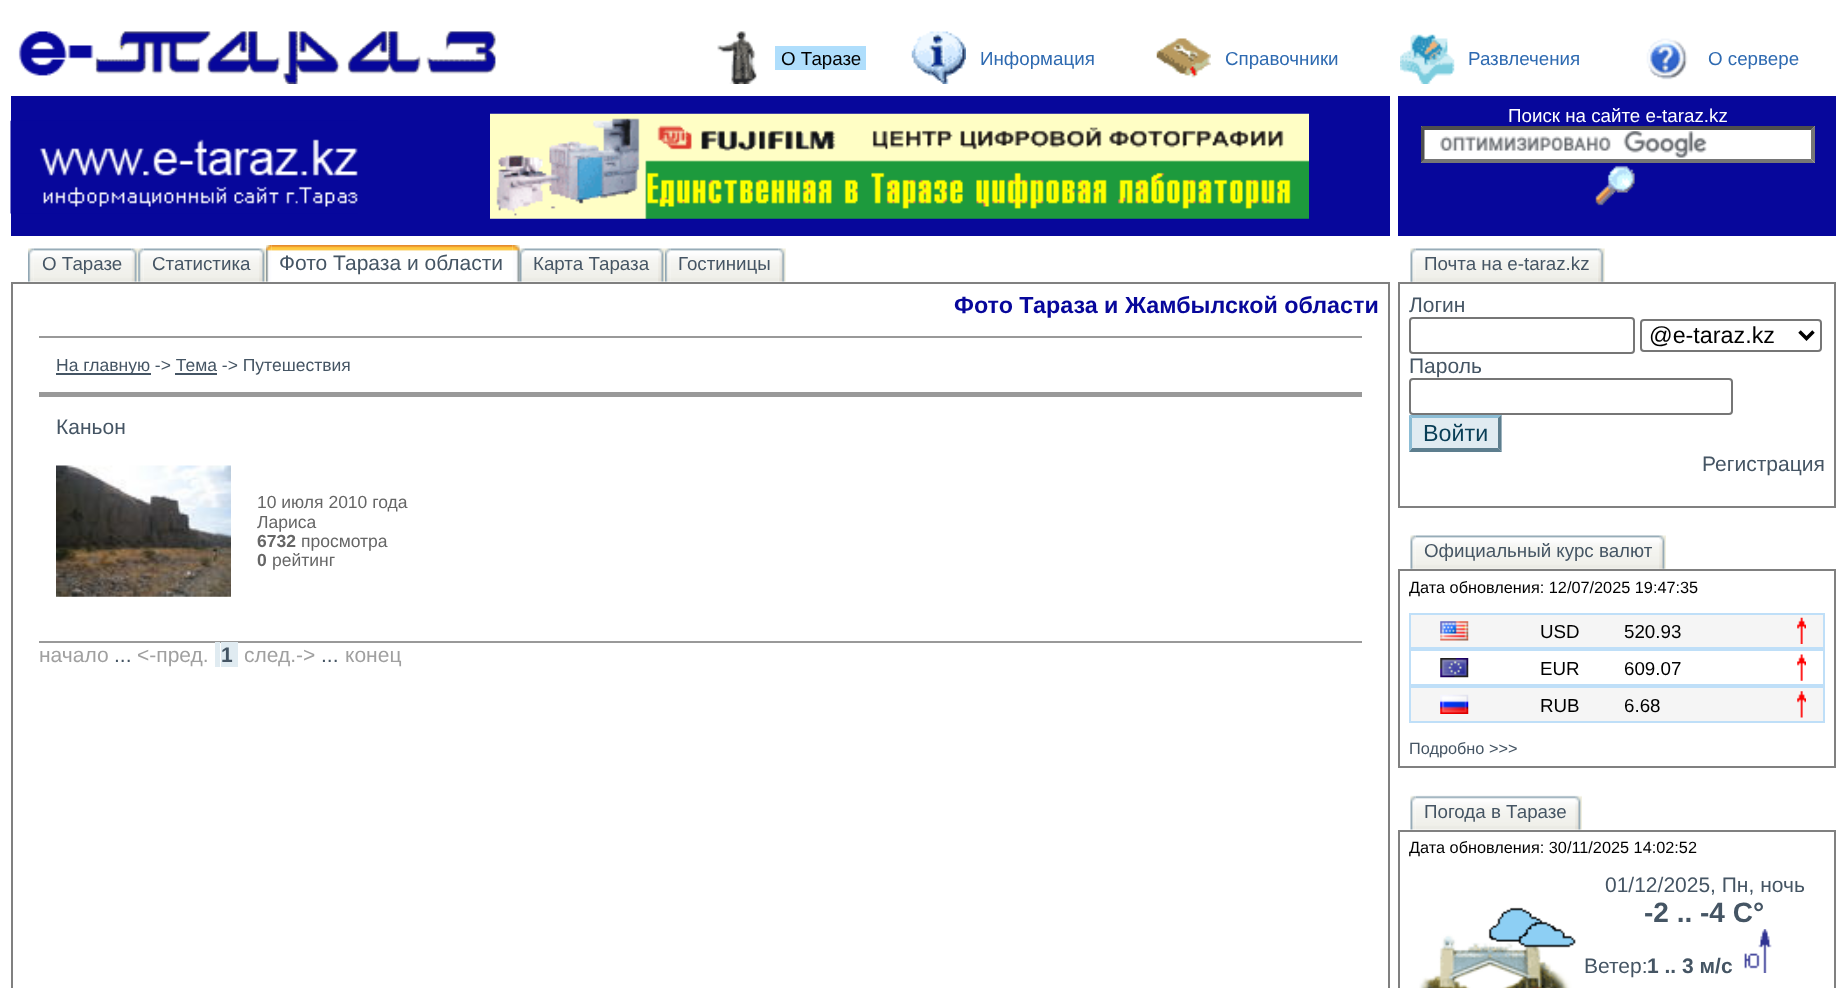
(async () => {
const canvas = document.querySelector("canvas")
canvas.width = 1845
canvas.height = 988
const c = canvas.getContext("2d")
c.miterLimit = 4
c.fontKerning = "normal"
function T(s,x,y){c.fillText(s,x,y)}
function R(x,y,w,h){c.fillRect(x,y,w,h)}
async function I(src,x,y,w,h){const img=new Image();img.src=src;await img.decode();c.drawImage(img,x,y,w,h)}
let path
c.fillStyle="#fff"
R(0,0,1845,988)
await I("1.png",18,31,478,53)
await I("2.png",717,31,40,53)
c.fillStyle="#afdefc"
R(775,46,91,24)
c.font="18.75px Liberation Sans"
c.fillStyle="#000"
T("О Таразе",781,65)
await I("3.png",911,31,55,53)
c.fillStyle="#2e6ab1"
T("Информация",980,65)
await I("4.png",1156,38,55,40)
T("Справочники",1225,65)
await I("5.png",1400,34,55,50)
T("Развлечения",1468,65)
await I("6.png",1646,38,42,42)
T("О сервере",1708,65)
c.fillStyle="#07079b"
R(11,96,1379,140)
await I("7.png",10,120,348,94)
await I("8.png",490,113,819,106)
R(1398,96,438,140)
c.fillStyle="#fff"
T("Поиск на сайте e-taraz.kz",1508,122)
R(1421,126,394,37)
await I("9.png",1440,131,267,27)
c.fillStyle="#4f4f4f"
path = new Path2D("M1421 126h394l-4 4h-387z")
c.fill(path)
c.fillStyle="#767676"
path = new Path2D("M1815 126v37l-4-4v-29.5z")
c.fill(path)
path = new Path2D("M1815 163h-394l3-4h387z")
c.fill(path)
c.fillStyle="#4f4f4f"
path = new Path2D("M1421 163v-37l3.5 3.5v29.5z")
c.fill(path)
await I("10.png",1595,165,40,41)
await I("12.png",33,248,99,34)
await I("11.png",28,248,6,34)
c.fillStyle="#455564"
T("О Таразе",42,270)
await I("13.png",131,248,8,34)
await I("15.png",143,248,116,34)
await I("14.png",138,248,6,34)
T("Статистика",152,270)
await I("16.png",259,248,7,34)
await I("18.png",271,245,242,6)
await I("17.png",266,245,6,37)
c.font="21px Liberation Sans"
T("Фото Тараза и области",279,270)
await I("19.png",512,245,8,37)
await I("20.png",519,245,6,37)
await I("21.png",525,248,133,34)
c.font="18.75px Liberation Sans"
T("Карта Тараза",533,270)
await I("16.png",658,248,7,34)
await I("22.png",670,248,109,34)
await I("11.png",665,248,6,34)
T("Гостиницы",678,270)
await I("23.png",778,248,8,34)
c.strokeStyle="#808080"
c.lineWidth=2
c.strokeRect(12,283,1377,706)
c.font="bold 23.3px Liberation Sans"
c.fillStyle="#07079b"
T("Фото Тараза и Жамбылской области",954,313)
c.fillStyle="#999"
R(39,336,1323,2)
R(39,392,1323,5)
c.fillStyle="#455564"
R(56,373,95,2)
c.font="17.5px Liberation Sans"
T("На главную -> Тема -> Путешествия",56,371)
R(175,373,42,2)
c.fillStyle="#999"
R(39,641,1323,2)
c.font="21px Liberation Sans"
c.fillStyle="#455564"
T("Каньон",56,434)
await I("24.png",56,465,175,132)
c.font="17.5px Liberation Sans"
c.fillStyle="#666"
T("10 июля 2010 года",257,508)
T("Лариса",257,528)
c.font="bold 17.5px Liberation Sans"
T("6732",257,547)
c.font="17.5px Liberation Sans"
T("просмотра",301,547)
c.font="bold 17.5px Liberation Sans"
T("0",257,566)
c.font="17.5px Liberation Sans"
T("рейтинг",272,566)
c.font="21px Liberation Sans"
c.fillStyle="#a0a0a0"
T("начало",39,662)
c.fillStyle="#455564"
T("...",114,662)
c.fillStyle="#a0a0a0"
T("<-пред.",137,662)
c.fillStyle="#e0ebf1"
R(221,642,17,25)
c.font="bold 21px Liberation Sans"
c.fillStyle="#455564"
T("1",221,662)
c.fillStyle="#e0ebf1"
R(215,642,5,25)
c.font="21px Liberation Sans"
c.fillStyle="#a0a0a0"
T("след.->",244,662)
c.fillStyle="#455564"
T("...",321,662)
c.fillStyle="#a0a0a0"
T("конец",345,662)
await I("26.png",1415,248,183,34)
await I("25.png",1410,248,6,34)
c.font="18.75px Liberation Sans"
c.fillStyle="#455564"
T("Почта на e-taraz.kz",1424,270)
await I("27.png",1597,248,8,34)
c.strokeRect(1399,283,436,224)
c.font="21px Liberation Sans"
T("Логин",1409,312)
c.beginPath()
c.roundRect(1410,318,224,35,3)
c.strokeStyle="#767676"
c.stroke()
c.beginPath()
c.roundRect(1641,320,180,31,3)
c.stroke()
path = new Path2D("M1799.5 331.5l7 7l7-7")
c.strokeStyle="#000"
c.lineWidth=3.5
c.stroke(path)
c.font="23.3px Liberation Sans"
c.fillStyle="#000"
T("@e-taraz.kz",1649,343)
c.font="21px Liberation Sans"
c.fillStyle="#455564"
T("Пароль",1409,373)
c.beginPath()
c.roundRect(1410,379,322,35,3)
c.strokeStyle="#767676"
c.lineWidth=2
c.stroke()
c.fillStyle="#e0ebf1"
R(1409,415,93,37)
c.fillStyle="#8cbdd5"
path = new Path2D("M1409 415h93l-4 3h-86z")
c.fill(path)
c.fillStyle="#5d7e8e"
path = new Path2D("M1501.5 415v36.5l-3.5-3.5v-30z")
c.fill(path)
path = new Path2D("M1502 452h-93l3-4h86z")
c.fill(path)
c.fillStyle="#8cbdd5"
path = new Path2D("M1409 451.5v-36.5l3 3v30z")
c.fill(path)
c.font="23.3px Liberation Sans"
c.fillStyle="#093e56"
T("Войти",1423,441)
c.font="21px Liberation Sans"
c.fillStyle="#455564"
T("Регистрация",1702,471)
await I("28.png",1415,535,244,34)
await I("25.png",1410,535,6,34)
c.font="18.75px Liberation Sans"
T("Официальный курс валют",1424,557)
await I("29.png",1659,535,7,34)
c.strokeStyle="#808080"
c.strokeRect(1399,570,436,197)
c.font="16.3px Liberation Sans"
c.fillStyle="#000"
T("Дата обновления: 12/07/2025 19:47:35",1409,593)
c.fillStyle="#f5f5f5"
c.beginPath()
c.rect(1410,614,414,34)
c.fill()
c.strokeStyle="#bfdff8"
c.stroke()
await I("30.png",1440,621,29,20)
c.font="18.75px Liberation Sans"
c.fillStyle="#000"
T("USD",1540,638)
T("520.93",1624,638)
await I("31.png",1797,617,9,27)
c.strokeRect(1410,650,414,35)
await I("32.png",1440,658,29,20)
T("EUR",1540,675)
T("609.07",1624,675)
await I("33.png",1797,654,9,27)
c.fillStyle="#f5f5f5"
c.beginPath()
c.rect(1410,687,414,35)
c.fill()
c.stroke()
await I("34.png",1440,694,29,20)
c.fillStyle="#000"
T("RUB",1540,712)
T("6.68",1624,712)
await I("35.png",1797,691,9,27)
c.font="16.3px Liberation Sans"
c.fillStyle="#455564"
T("Подробно >>>",1409,754)
await I("37.png",1415,795,160,35)
await I("36.png",1410,795,6,35)
c.font="18.75px Liberation Sans"
T("Погода в Таразе",1424,818)
await I("38.png",1575,795,7,35)
c.strokeStyle="#808080"
c.strokeRect(1399,831,436,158)
c.font="16.3px Liberation Sans"
c.fillStyle="#000"
T("Дата обновления: 30/11/2025 14:02:52",1409,853)
await I("39.png",1419,907,157,81)
c.font="21px Liberation Sans"
c.fillStyle="#455564"
T("01/12/2025, Пн, ночь",1605,892)
c.font="bold 28px Liberation Sans"
T("-2 .. -4 C°",1644,922)
c.font="21px Liberation Sans"
T("Ветер:",1584,973)
c.font="bold 21px Liberation Sans"
T("1 .. 3 м/с",1647,973)
await I("40.png",1744,929,28,44)
})()
